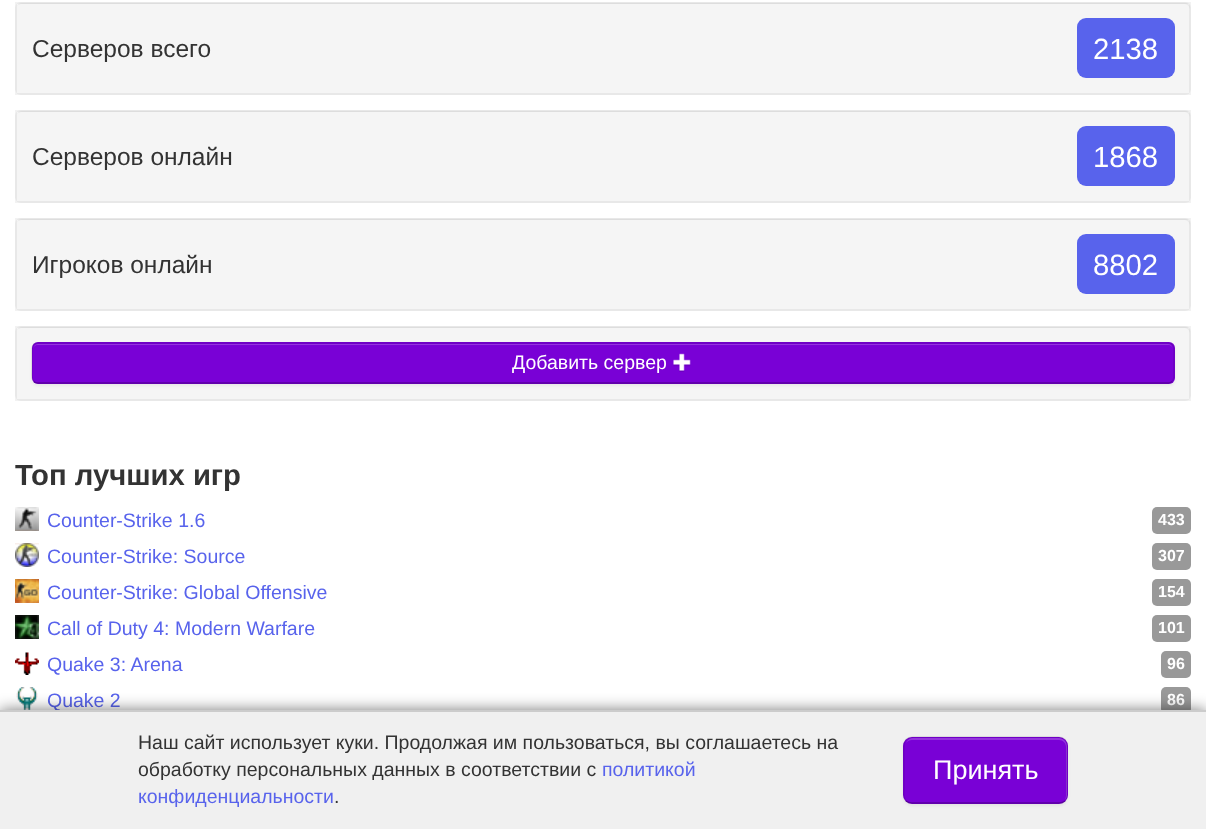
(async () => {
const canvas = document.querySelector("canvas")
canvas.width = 1206
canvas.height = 829
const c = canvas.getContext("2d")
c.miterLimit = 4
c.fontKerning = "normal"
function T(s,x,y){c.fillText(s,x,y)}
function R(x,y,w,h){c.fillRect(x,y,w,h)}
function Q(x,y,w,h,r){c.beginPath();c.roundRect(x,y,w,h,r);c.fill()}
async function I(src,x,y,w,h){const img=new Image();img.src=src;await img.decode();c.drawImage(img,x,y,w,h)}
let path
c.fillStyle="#fff"
R(0,0,1206,829)
c.fillStyle="#f5f5f5"
Q(15,2,1176,93,6)
c.fillStyle="#e9e9e9"
path = new Path2D("M21 4h1164c2 0 5 3 5 5v-1c0-3-2-5-5-5h-1163c-2 0-4 1-5 3c1-1 3-2 4-2z")
c.fill(path)
c.strokeStyle="#0000000d"
c.lineWidth=2
c.strokeRect(16,3,1174,91)
c.font="24.5px Liberation Sans"
c.fillStyle="#333"
T("Серверов всего",32,57)
c.fillStyle="#5863ec"
Q(1077,18,98,60,9)
c.font="29.25px Liberation Sans"
c.fillStyle="#fff"
T("2138",1093,59)
c.fillStyle="#f5f5f5"
Q(15,110,1176,93,6)
c.fillStyle="#e9e9e9"
path = new Path2D("M21 112h1164c2 0 5 3 5 5v-1c0-3-2-5-5-5h-1163c-2 0-4 1-5 3c1-1 3-2 4-2z")
c.fill(path)
c.strokeRect(16,111,1174,91)
c.font="24.5px Liberation Sans"
c.fillStyle="#333"
T("Серверов онлайн",32,165)
c.fillStyle="#5863ec"
Q(1077,126,98,60,9)
c.font="29.25px Liberation Sans"
c.fillStyle="#fff"
T("1868",1093,167)
c.fillStyle="#f5f5f5"
Q(15,218,1176,93,6)
c.fillStyle="#e9e9e9"
path = new Path2D("M21 220h1164c2 0 5 3 5 5v-1c0-3-2-5-5-5h-1163c-2 0-4 1-5 3c1-1 3-2 4-2z")
c.fill(path)
c.strokeRect(16,219,1174,91)
c.font="24.5px Liberation Sans"
c.fillStyle="#333"
T("Игроков онлайн",32,273)
c.fillStyle="#5863ec"
Q(1077,234,98,60,9)
c.font="29.25px Liberation Sans"
c.fillStyle="#fff"
T("8802",1093,275)
c.fillStyle="#f5f5f5"
Q(15,326,1176,75,6)
c.fillStyle="#e9e9e9"
path = new Path2D("M21 328h1164c2 0 5 3 5 5v-1c0-3-2-5-5-5h-1163c-2 0-4 1-5 3c1-1 3-2 4-2z")
c.fill(path)
c.strokeRect(16,327,1174,73)
c.fillStyle="#0000000d"
c.filter="blur(1.5px)"
c.beginPath()
c.roundRect(32,344,1143,42,6)
c.fill()
c.filter="none"
c.fillStyle="#7901d6"
Q(32,342,1143,42,6)
c.fillStyle="#9434de"
path = new Path2D("M38 345h1130c3 0 5 2 5 5c0-3-2-6-5-6h-1130c-3 0-5 3-5 6c0-3 2-5 5-5z")
c.fill(path)
path = new Path2D("M1172 381.5c-1 1-2 1.5-3.5 1.5h-1131c-1.5 0-2.5-.5-3.5-1.5")
c.strokeStyle="#00000040"
c.lineWidth=1.5
c.stroke(path)
path = new Path2D("M34 381.5c-3.5-3-2-10-2-13.5v-15c0-4-.5-10 5.5-10h1131c7.5 0 5.5 11 5.5 15v15c0 3 .5 6.5-2 8.5")
c.strokeStyle="#0000001a"
c.stroke(path)
c.font="19.5px Liberation Sans"
c.fillStyle="#fff"
T("Добавить сервер",512,369)
await I("1.png",673,353,18,19)
c.font="bold 29.25px Liberation Sans"
c.fillStyle="#333"
T("Топ лучших игр",15,485)
await I("2.png",15,507,24,24)
c.font="19.5px Liberation Sans"
c.fillStyle="#5863ec"
T("Counter-Strike 1.6",47,527)
c.fillStyle="#999"
Q(1152,507,39,27,5)
c.font="bold 16px Liberation Sans"
c.fillStyle="#fff"
T("433",1158,525)
await I("3.png",15,543,24,24)
c.font="19.5px Liberation Sans"
c.fillStyle="#5863ec"
T("Counter-Strike: Source",47,563)
c.fillStyle="#999"
Q(1152,543,39,27,5)
c.font="bold 16px Liberation Sans"
c.fillStyle="#fff"
T("307",1158,561)
await I("4.png",15,579,24,24)
c.font="19.5px Liberation Sans"
c.fillStyle="#5863ec"
T("Counter-Strike: Global Offensive",47,599)
c.fillStyle="#999"
Q(1152,579,39,27,5)
c.font="bold 16px Liberation Sans"
c.fillStyle="#fff"
T("154",1158,597)
await I("5.png",15,615,24,24)
c.font="19.5px Liberation Sans"
c.fillStyle="#5863ec"
T("Call of Duty 4: Modern Warfare",47,635)
c.fillStyle="#999"
Q(1152,615,39,27,5)
c.font="bold 16px Liberation Sans"
c.fillStyle="#fff"
T("101",1158,633)
await I("6.png",15,652,24,23)
c.font="19.5px Liberation Sans"
c.fillStyle="#5863ec"
T("Quake 3: Arena",47,671)
c.fillStyle="#999"
Q(1161,651,30,27,5)
c.font="bold 16px Liberation Sans"
c.fillStyle="#fff"
T("96",1167,669)
await I("7.png",16,687,22,23)
c.font="19.5px Liberation Sans"
c.fillStyle="#5863ec"
T("Quake 2",47,707)
c.fillStyle="#999"
Q(1161,687,30,27,5)
c.font="bold 16px Liberation Sans"
c.fillStyle="#fff"
T("86",1167,705)
c.fillStyle="#00000087"
c.filter="blur(7.5px)"
c.beginPath()
c.rect(0,710,1206,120)
c.fill()
c.filter="none"
c.fillStyle="#f0f0f0"
R(0,712,1206,117)
c.fillStyle="#ccc"
R(0,710,1206,2)
c.font="19.5px Liberation Sans"
c.fillStyle="#333"
T("Наш сайт использует куки. Продолжая им пользоваться, вы соглашаетесь на",138,749)
T("обработку персональных данных в соответствии с",138,776)
c.fillStyle="#5863ec"
T("политикой",602,776)
T("конфиденциальности",138,803)
c.fillStyle="#333"
T(".",334,803)
c.fillStyle="#0000000d"
c.filter="blur(1.5px)"
c.beginPath()
c.roundRect(903,738,165,68,9)
c.fill()
c.filter="none"
c.fillStyle="#7901d6"
Q(903,737,165,67,9)
c.fillStyle="#9434de"
path = new Path2D("M912 740h147c4 0 7 3 7 7v49l-1 4c1-1 2-3 2-5v-49c0-4-4-8-8-8h-146c-3 0-6 2-7 5c1-2 4-3 6-3z")
c.fill(path)
path = new Path2D("M1065 801c-1.5 1.5-4 2-6 2h-147c-2 0-4.5-.5-6-2")
c.strokeStyle="#00000040"
c.stroke(path)
path = new Path2D("M906 801c-3.5-4-2-10-2-14v-17c0-37-5.5-33 32.5-33h98c38 0 32.5-4 32.5 33v17c0 4 1.5 10-2 14")
c.strokeStyle="#0000001a"
c.stroke(path)
c.font="27px Liberation Sans"
c.fillStyle="#fff"
T("Принять",933,779)
})()
